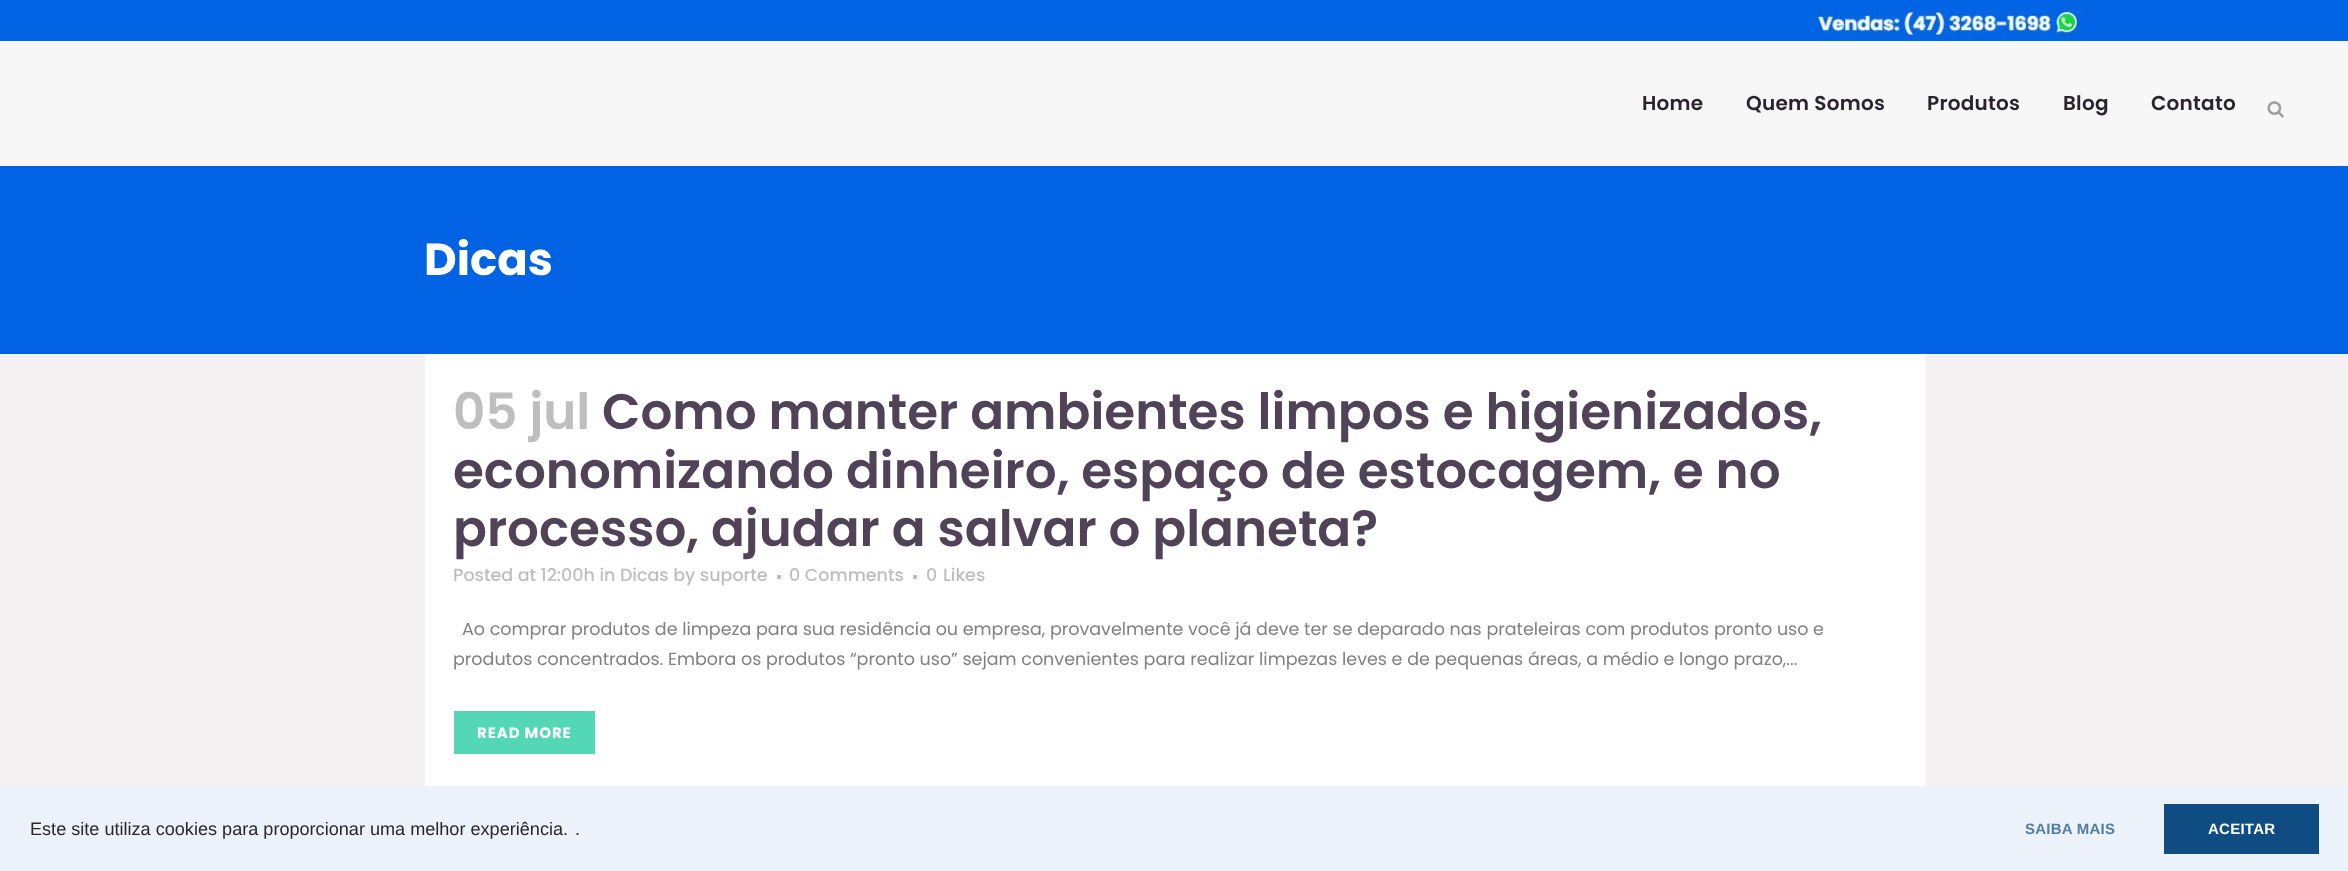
(async () => {
const canvas = document.querySelector("canvas")
canvas.width = 2348
canvas.height = 871
const c = canvas.getContext("2d")
c.miterLimit = 4
c.fontKerning = "normal"
function T(s,x,y){c.fillText(s,x,y)}
function R(x,y,w,h){c.fillRect(x,y,w,h)}
async function I(src,x,y,w,h){const img=new Image();img.src=src;await img.decode();c.drawImage(img,x,y,w,h)}
c.fillStyle="#f4f2f2"
R(0,0,2348,871)
c.fillStyle="#0064e4"
R(0,0,2348,41)
await I("1.png",1815,10,269,25)
c.fillStyle="#f7f7f7"
R(0,41,2348,125)
c.letterSpacing="0.25px"
c.font="600 20px Poppins"
c.fillStyle="#2b242e"
T("Home",1642,110)
T("Quem Somos",1746,110)
T("Produtos",1927,110)
T("Blog",2063,110)
T("Contato",2151,110)
await I("2.png",2267,101,17,17)
c.fillStyle="#0163e4"
R(0,166,2348,188)
c.letterSpacing="0px"
c.font="bold 45px Poppins"
c.fillStyle="#fff"
T("Dicas",424,275)
R(425,354,1500,432)
c.font="600 50px Poppins"
c.fillStyle="#bebebe"
T("05 jul",453,429)
c.fillStyle="#514357"
T("Como manter ambientes limpos e higienizados,",602,429)
T("economizando dinheiro, espaço de estocagem, e no",453,488)
T("processo, ajudar a salvar o planeta?",453,546)
c.font="500 17.5px Poppins"
c.fillStyle="#bebebe"
T("Posted at 12:00h in Dicas by suporte",453,581)
R(777,575,4,4)
T("0 Comments",789,581)
R(913,575,4,4)
T("0",926,581)
T("Likes",943,581)
c.font="17.5px Poppins"
c.fillStyle="#828181"
T("Ao comprar produtos de limpeza para sua residência ou empresa, provavelmente você já deve ter se deparado nas prateleiras com produtos pronto uso e",462,635)
T("produtos concentrados. Embora os produtos “pronto uso” sejam convenientes para realizar limpezas leves e de pequenas áreas, a médio e longo prazo,...",453,665)
c.fillStyle="#53d7b4"
R(454,711,141,43)
c.letterSpacing="0.9px"
c.font="bold 15px Poppins"
c.fillStyle="#fff"
T("READ MORE",477,738)
c.fillStyle="#ebf2fa"
R(0,786,2348,85)
c.letterSpacing="0px"
c.font="18.1px Liberation Sans"
c.fillStyle="#282828"
T("Este site utiliza cookies para proporcionar uma melhor experiência.",30,835)
T(".",575,835)
c.letterSpacing="0.25px"
c.font="bold 15px Liberation Sans"
c.fillStyle="#517ea5"
T("SAIBA MAIS",2025,834)
c.fillStyle="#0f4c81"
R(2164,804,155,50)
c.fillStyle="#fff"
T("ACEITAR",2208,834)
})()
